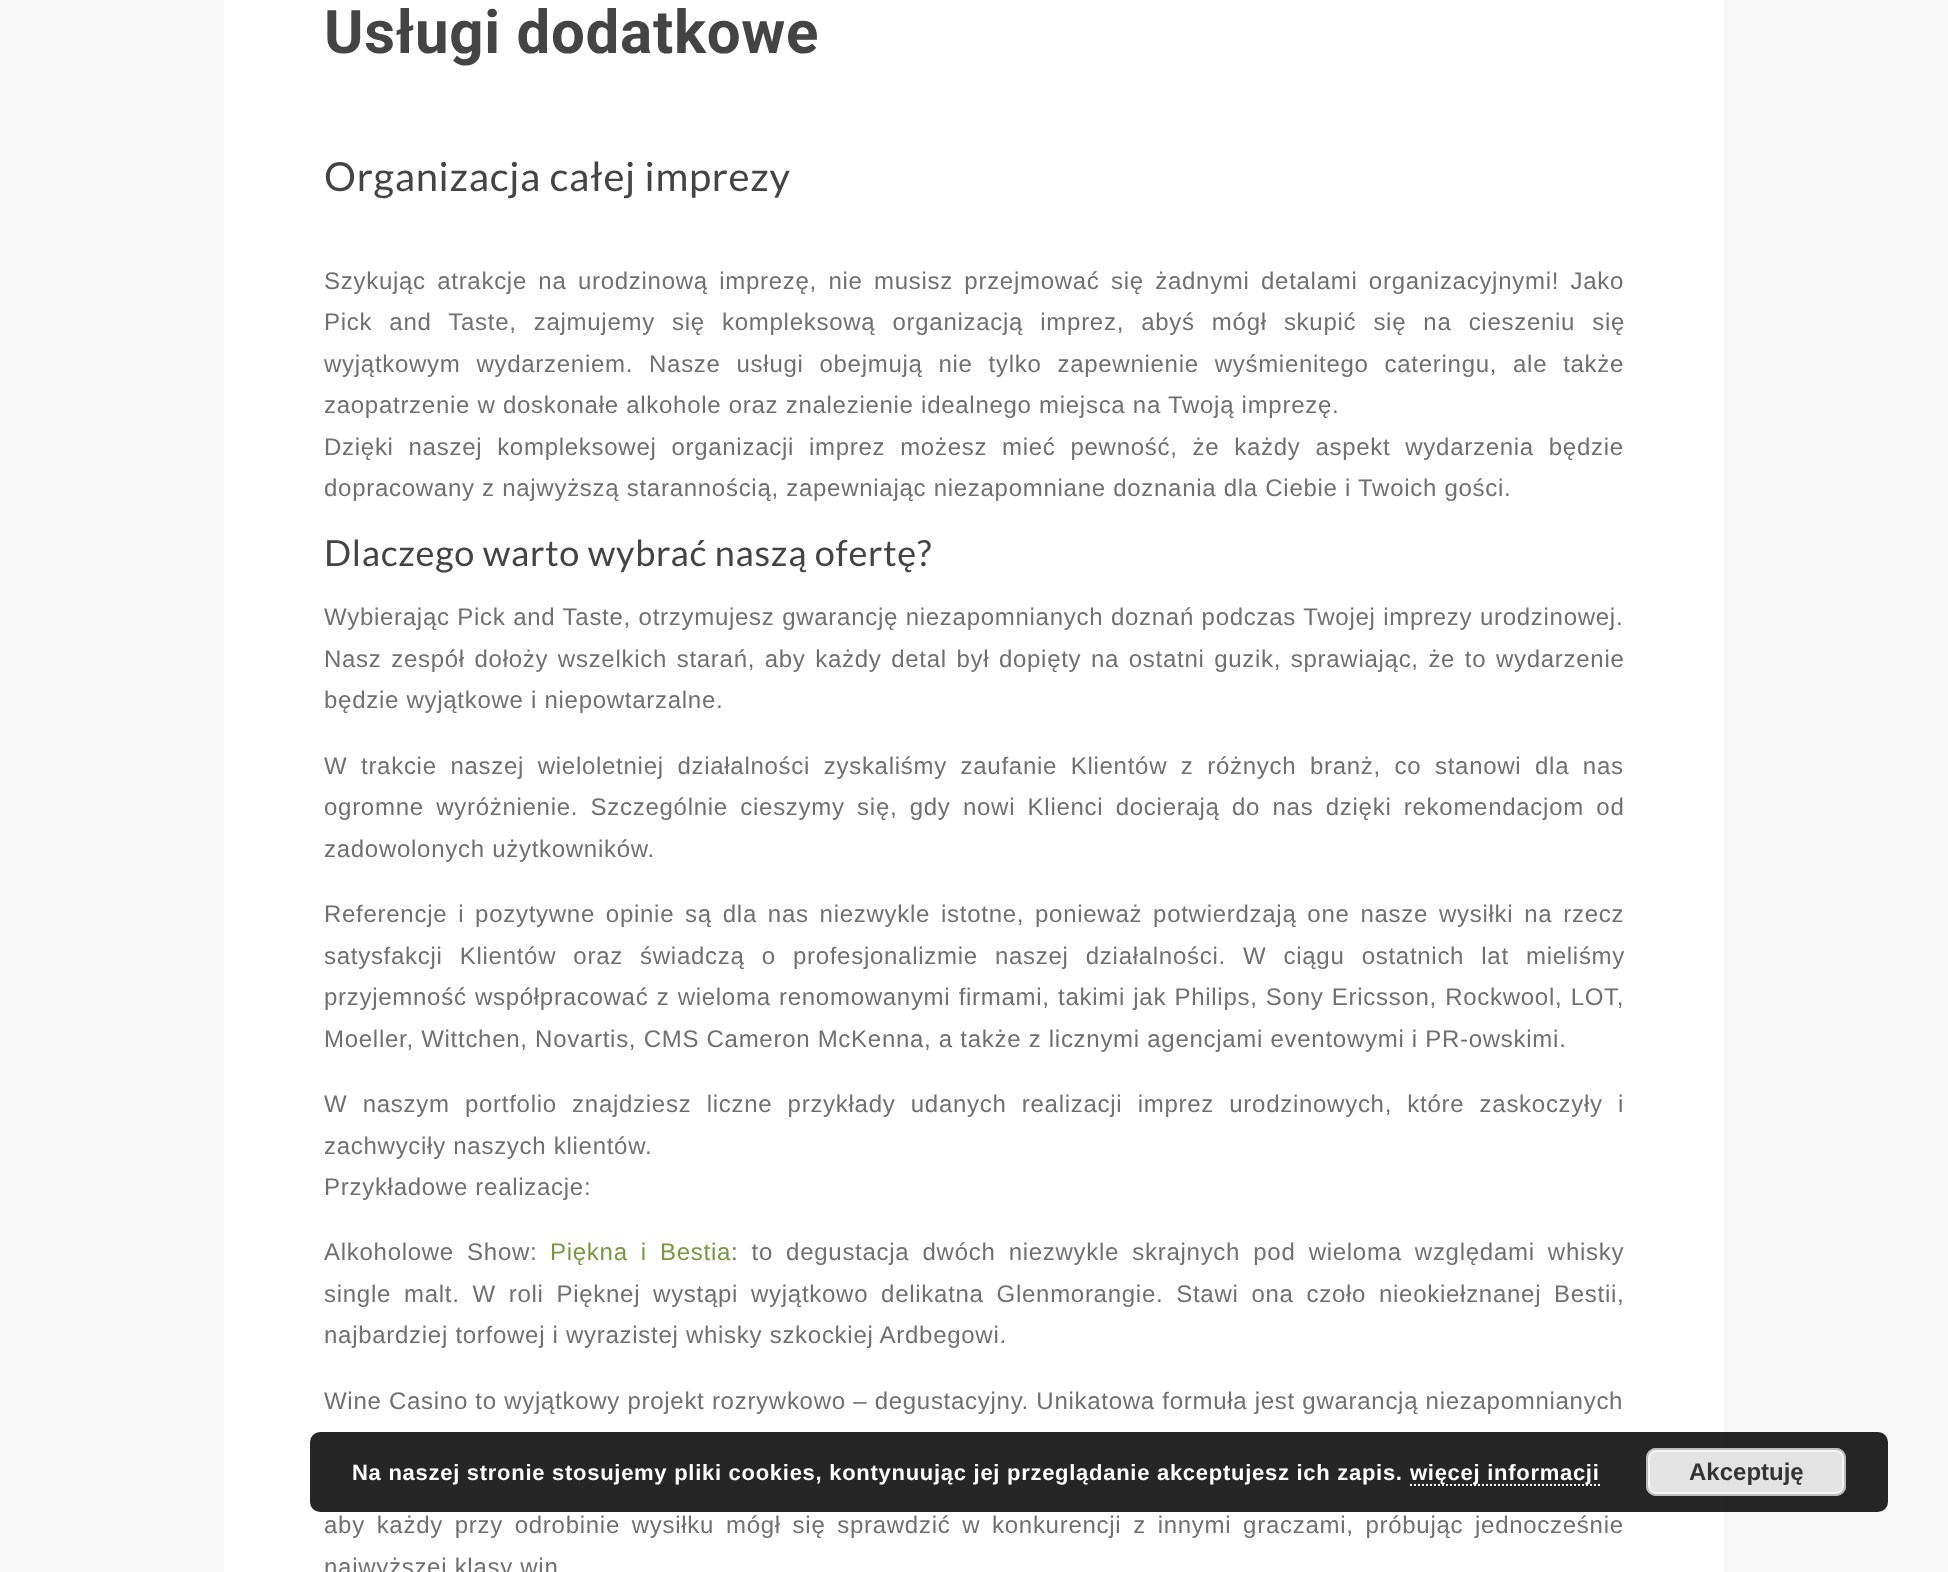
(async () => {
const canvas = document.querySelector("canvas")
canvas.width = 1948
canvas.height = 1572
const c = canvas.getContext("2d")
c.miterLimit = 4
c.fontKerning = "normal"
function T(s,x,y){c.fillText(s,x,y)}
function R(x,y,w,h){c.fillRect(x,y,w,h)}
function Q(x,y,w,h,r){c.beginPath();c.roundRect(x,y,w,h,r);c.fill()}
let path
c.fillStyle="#f8f8f8"
R(0,0,1948,1572)
c.fillStyle="#fff"
R(224,0,1500,1572)
c.letterSpacing="0.72px"
c.font="bold 60px Roboto"
c.fillStyle="#444"
T("Usługi dodatkowe",324,53)
c.font="40px Lato"
T("Organizacja całej imprezy",324,191)
c.wordSpacing="4px"
c.font="24px Liberation Sans"
c.fillStyle="#707070"
T("Szykując atrakcje na urodzinową imprezę, nie musisz przejmować się żadnymi detalami organizacyjnymi! Jako",324,289)
c.wordSpacing="9.75px"
T("Pick and Taste, zajmujemy się kompleksową organizacją imprez, abyś mógł skupić się na cieszeniu się",324,330)
c.wordSpacing="8.5px"
T("wyjątkowym wydarzeniem. Nasze usługi obejmują nie tylko zapewnienie wyśmienitego cateringu, ale także",324,372)
c.wordSpacing="0px"
T("zaopatrzenie w doskonałe alkohole oraz znalezienie idealnego miejsca na Twoją imprezę.",324,413)
c.wordSpacing="7.5px"
T("Dzięki naszej kompleksowej organizacji imprez możesz mieć pewność, że każdy aspekt wydarzenia będzie",324,455)
c.wordSpacing="0px"
T("dopracowany z najwyższą starannością, zapewniając niezapomniane doznania dla Ciebie i Twoich gości.",324,496)
c.font="36px Lato"
c.fillStyle="#444"
T("Dlaczego warto wybrać naszą ofertę?",324,566)
c.wordSpacing="0.25px"
c.font="24px Liberation Sans"
c.fillStyle="#707070"
T("Wybierając Pick and Taste, otrzymujesz gwarancję niezapomnianych doznań podczas Twojej imprezy urodzinowej.",324,625)
c.wordSpacing="2.25px"
T("Nasz zespół dołoży wszelkich starań, aby każdy detal był dopięty na ostatni guzik, sprawiając, że to wydarzenie",324,667)
c.wordSpacing="0px"
T("będzie wyjątkowe i niepowtarzalne.",324,708)
c.wordSpacing="6.25px"
T("W trakcie naszej wieloletniej działalności zyskaliśmy zaufanie Klientów z różnych branż, co stanowi dla nas",324,774)
c.wordSpacing="5px"
T("ogromne wyróżnienie. Szczególnie cieszymy się, gdy nowi Klienci docierają do nas dzięki rekomendacjom od",324,815)
c.wordSpacing="0px"
T("zadowolonych użytkowników.",324,857)
c.wordSpacing="3.5px"
T("Referencje i pozytywne opinie są dla nas niezwykle istotne, ponieważ potwierdzają one nasze wysiłki na rzecz",324,922)
c.wordSpacing="9.75px"
T("satysfakcji Klientów oraz świadczą o profesjonalizmie naszej działalności. W ciągu ostatnich lat mieliśmy",324,964)
c.wordSpacing="0.9px"
T("przyjemność współpracować z wieloma renomowanymi firmami, takimi jak Philips, Sony Ericsson, Rockwool, LOT,",324,1005)
c.wordSpacing="0px"
T("Moeller, Wittchen, Novartis, CMS Cameron McKenna, a także z licznymi agencjami eventowymi i PR-owskimi.",324,1047)
c.wordSpacing="7.9px"
T("W naszym portfolio znajdziesz liczne przykłady udanych realizacji imprez urodzinowych, które zaskoczyły i",324,1112)
c.wordSpacing="0px"
T("zachwyciły naszych klientów.",324,1154)
T("Przykładowe realizacje:",324,1195)
c.wordSpacing="5.75px"
T("Alkoholowe Show:",324,1260)
c.fillStyle="#789741"
T("Piękna i Bestia",550,1260)
c.fillStyle="#707070"
T(": to degustacja dwóch niezwykle skrajnych pod wieloma względami whisky",731,1260)
c.wordSpacing="5.5px"
T("single malt. W roli Pięknej wystąpi wyjątkowo delikatna Glenmorangie. Stawi ona czoło nieokiełznanej Bestii,",324,1302)
c.wordSpacing="0px"
T("najbardziej torfowej i wyrazistej whisky szkockiej Ardbegowi.",324,1343)
T("Wine Casino to wyjątkowy projekt rozrywkowo – degustacyjny. Unikatowa formuła jest gwarancją niezapomnianych",324,1409)
c.wordSpacing="4.4px"
T("aby każdy przy odrobinie wysiłku mógł się sprawdzić w konkurencji z innymi graczami, próbując jednocześnie",324,1533)
c.wordSpacing="0px"
T("najwyższej klasy win",324,1575)
c.fillStyle="#000000d9"
Q(310,1432,1578,80,10)
c.font="bold 22px Liberation Sans"
c.fillStyle="#fff"
T("Na naszej stronie stosujemy pliki cookies, kontynuując jej przeglądanie akceptujesz ich zapis.",352,1480)
path = new Path2D("M1410 1485h190")
c.strokeStyle="#fff"
c.lineWidth=2
c.setLineDash([2,2])
c.stroke(path)
T("więcej informacji",1410,1480)
c.fillStyle="#e3e3e3"
Q(1646,1448,200,48,10)
c.beginPath()
c.roundRect(1649,1451,194,42,7)
c.strokeStyle="#f6f6f6"
c.setLineDash([])
c.stroke()
c.beginPath()
c.roundRect(1647,1449,198,46,9)
c.strokeStyle="#bbb"
c.stroke()
c.letterSpacing="0px"
c.font="bold 24px Liberation Sans"
c.fillStyle="#333"
T("Akceptuję",1689,1480)
})()
